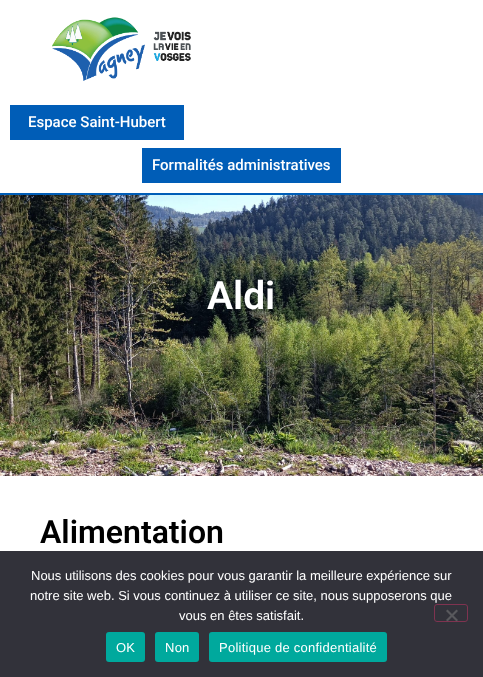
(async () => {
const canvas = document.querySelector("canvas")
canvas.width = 483
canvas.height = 677
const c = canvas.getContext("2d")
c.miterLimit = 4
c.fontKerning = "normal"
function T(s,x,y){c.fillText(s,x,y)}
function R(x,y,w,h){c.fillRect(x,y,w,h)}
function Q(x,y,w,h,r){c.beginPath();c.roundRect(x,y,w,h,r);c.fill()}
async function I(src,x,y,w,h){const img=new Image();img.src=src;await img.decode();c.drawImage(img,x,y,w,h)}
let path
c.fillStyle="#fff"
R(0,0,483,677)
c.fillStyle="#005db7"
R(0,193,483,2)
await I("1.png",52,17,139,64)
R(10,105,174,35)
c.font="500 15px Roboto"
c.fillStyle="#fff"
T("Espace Saint-Hubert",28,127)
c.fillStyle="#005db7"
R(142,148,199,35)
c.fillStyle="#fff"
T("Formalités administratives",152,170)
await I("2.png",0,195,483,281)
c.font="600 39px Roboto"
T("Aldi",207,309)
c.font="600 32px Roboto"
c.fillStyle="#000"
T("Alimentation",40,543)
c.fillStyle="#32323a"
R(0,551,483,126)
c.font="13px Liberation Sans"
c.fillStyle="#fff"
T("Nous utilisons des cookies pour vous garantir la meilleure expérience sur",31,580)
T("notre site web. Si vous continuez à utiliser ce site, nous supposerons que",30,600)
T("vous en êtes satisfait.",179,620)
c.beginPath()
c.roundRect(434.5,604.5,33,17,2.5)
c.strokeStyle="#7f3350"
c.stroke()
c.fillStyle="#59595d"
path = new Path2D("M456.5 609.5l1.5 1.5l-10.5 10.5l-1.5-1.5z")
c.fill(path)
path = new Path2D("M446 611l1.5-1.5l10.5 10.5l-1.5 1.5z")
c.fill(path)
c.fillStyle="#00a99d"
Q(106,632,39,30,3)
c.letterSpacing="0.25px"
c.fillStyle="#fff"
T("OK",116,652)
c.fillStyle="#00a99d"
Q(155,632,44,30,3)
c.fillStyle="#fff"
T("Non",165,652)
c.fillStyle="#00a99d"
Q(209,632,178,30,3)
c.fillStyle="#fff"
T("Politique de confidentialité",219,652)
})()
